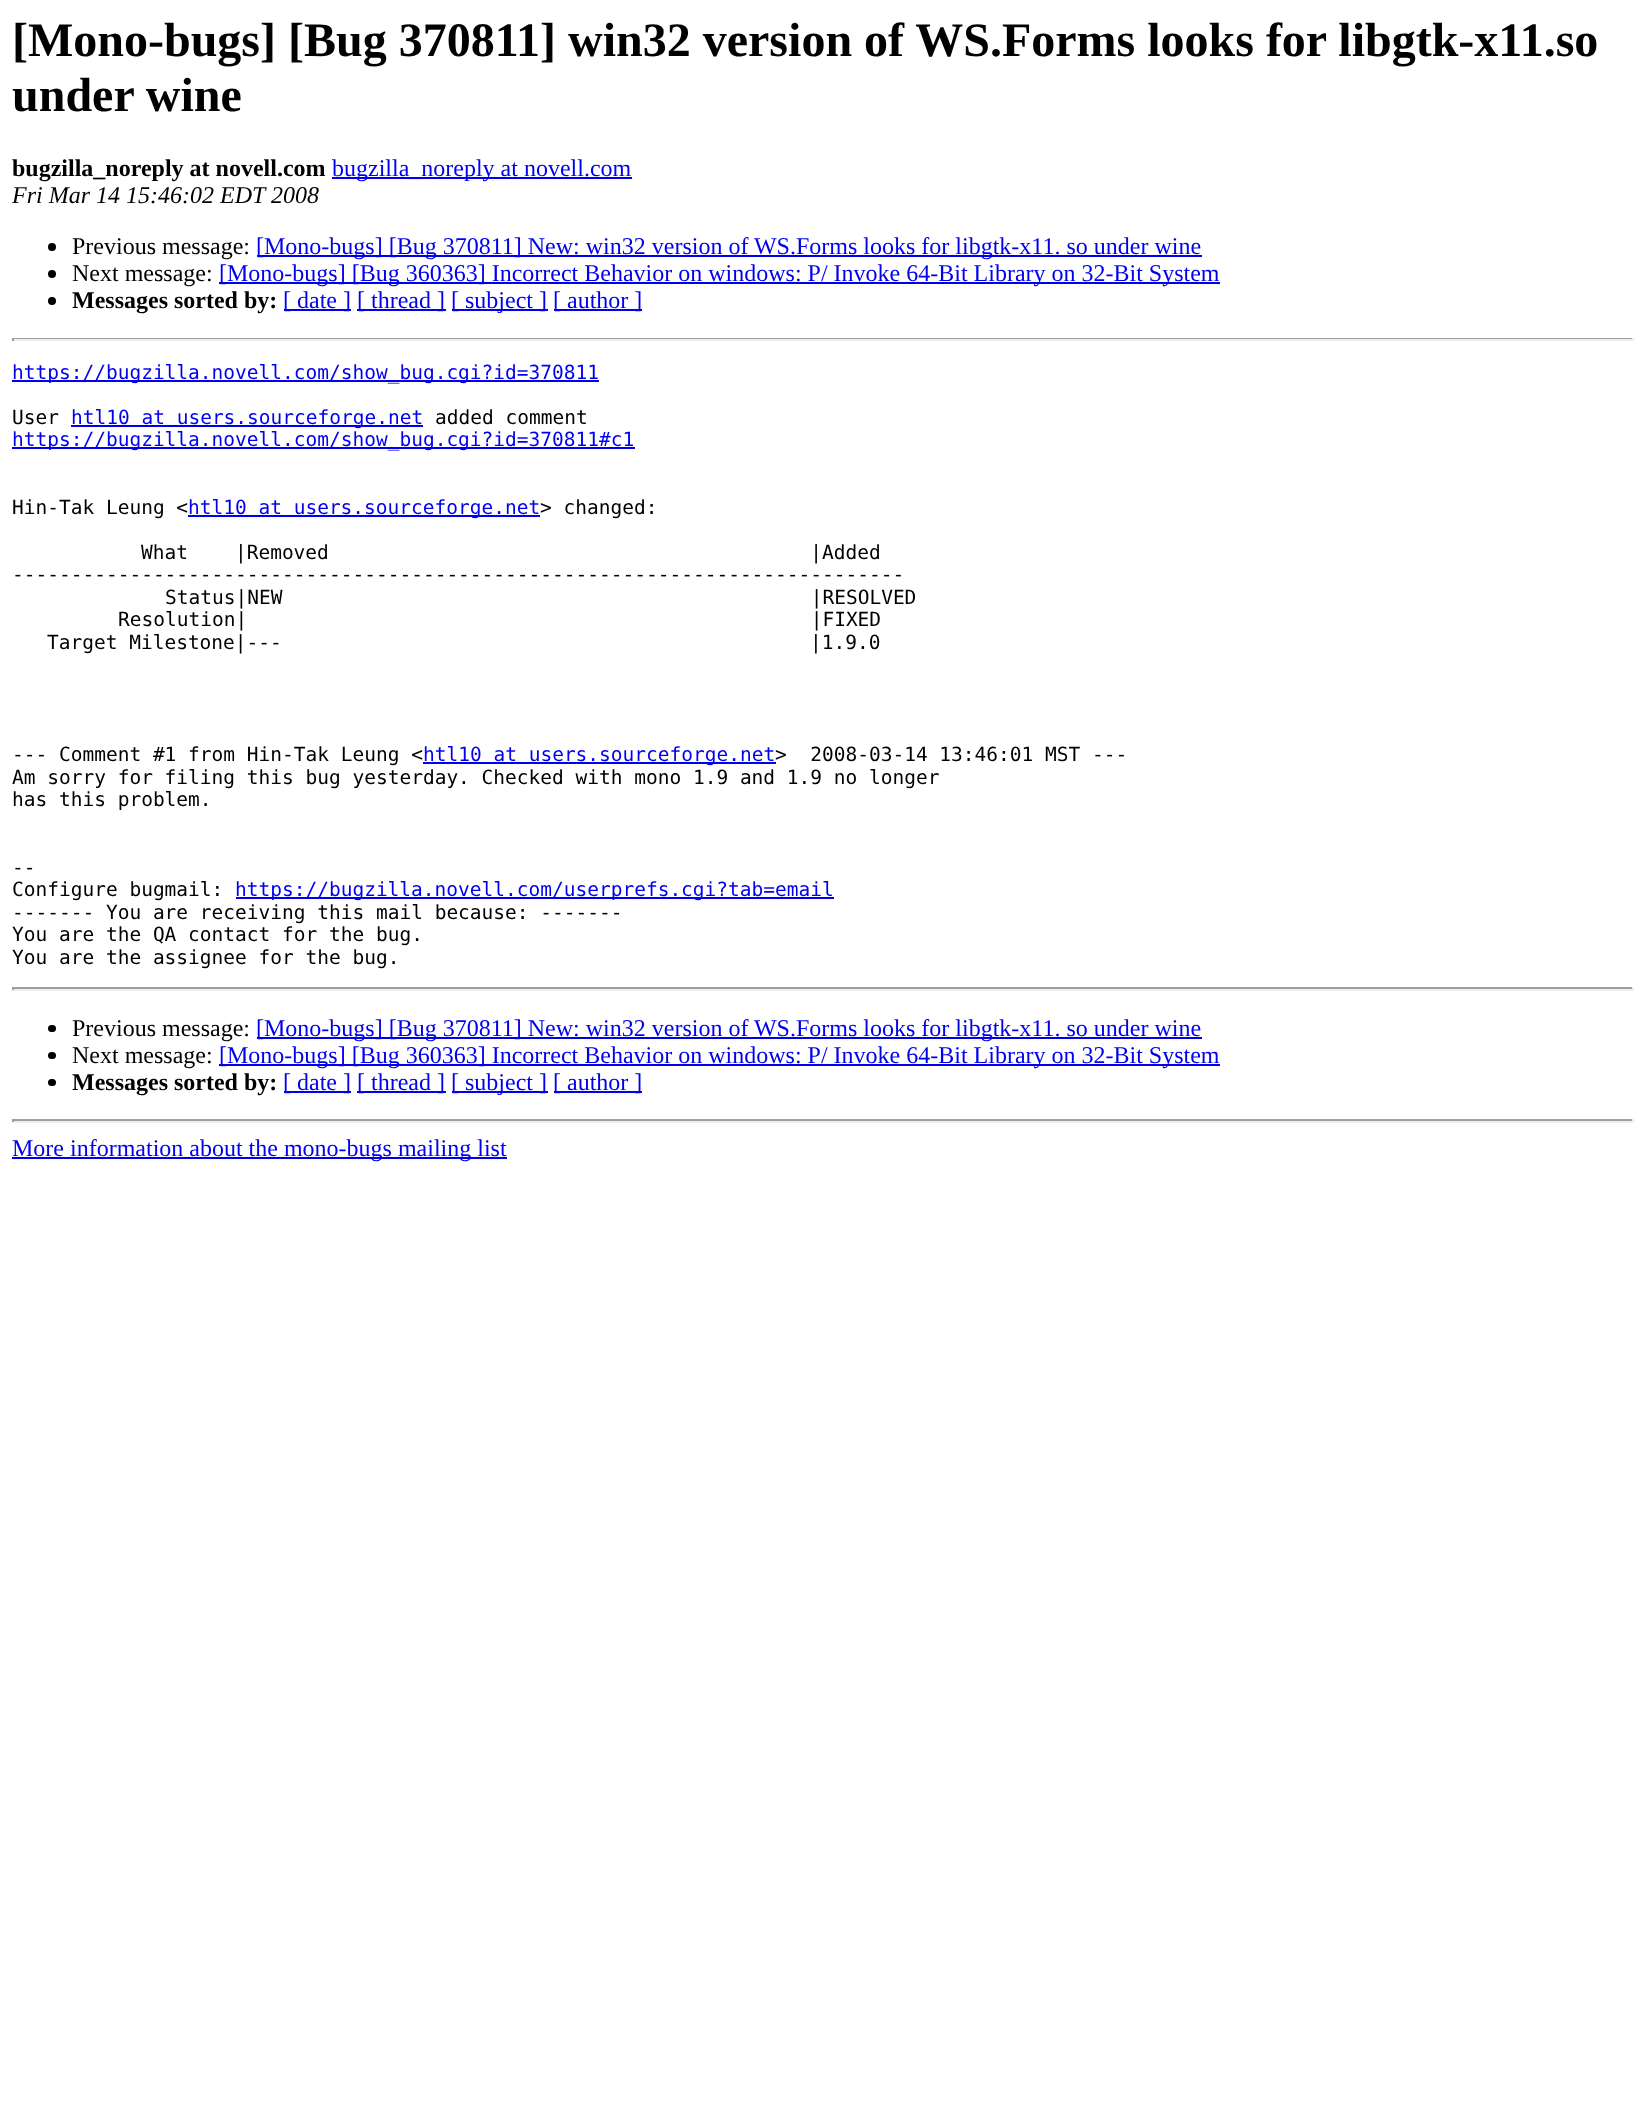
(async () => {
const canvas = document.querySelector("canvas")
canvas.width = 1645
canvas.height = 2112
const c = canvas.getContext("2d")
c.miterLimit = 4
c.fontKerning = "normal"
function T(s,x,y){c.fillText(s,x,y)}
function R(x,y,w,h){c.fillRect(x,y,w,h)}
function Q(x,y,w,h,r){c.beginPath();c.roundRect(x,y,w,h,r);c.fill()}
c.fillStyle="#fff"
R(0,0,1645,2112)
c.font="bold 48px Liberation Serif"
c.fillStyle="#000"
T("[Mono-bugs] [Bug 370811] win32 version of WS.Forms looks for libgtk-x11.so",12,56)
T("under wine",12,111)
c.font="bold 24px Liberation Serif"
T("bugzilla_noreply at novell.com",12,176)
c.fillStyle="#00e"
R(332,177,300,2)
c.font="24px Liberation Serif"
T("bugzilla_noreply at novell.com",332,176)
c.font="italic 24px Liberation Serif"
c.fillStyle="#000"
T("Fri Mar 14 15:46:02 EDT 2008",12,203)
c.beginPath()
c.arc(52,247,4,0,7)
c.fill()
c.font="24px Liberation Serif"
T("Previous message:",72,254)
c.fillStyle="#00e"
R(257,255,945,2)
T("[Mono-bugs] [Bug 370811] New: win32 version of WS.Forms looks for libgtk-x11. so under wine",256,254)
c.fillStyle="#000"
c.beginPath()
c.arc(52,274,4,0,7)
c.fill()
T("Next message:",72,281)
c.fillStyle="#00e"
R(219,282,1001,2)
T("[Mono-bugs] [Bug 360363] Incorrect Behavior on windows: P/ Invoke 64-Bit Library on 32-Bit System",219,281)
c.fillStyle="#000"
c.beginPath()
c.arc(52,301,4,0,7)
c.fill()
c.font="bold 24px Liberation Serif"
T("Messages sorted by:",72,308)
c.fillStyle="#00e"
R(284,309,67,2)
c.font="24px Liberation Serif"
T("[ date ]",283,308)
R(357,309,89,2)
T("[ thread ]",357,308)
R(452,309,96,2)
T("[ subject ]",451,308)
R(554,309,88,2)
T("[ author ]",553,308)
c.fillStyle="#9f9f9f"
R(12,338,1622,1)
c.fillStyle="#eee"
R(1632,338,2,3)
R(12,339,1622,2)
c.fillStyle="#9f9f9f"
R(12,338,2,3)
c.fillStyle="#00e"
R(12,380,587,2)
c.font="19.5px DejaVu Sans Mono"
T("https://bugzilla.novell.com/show_bug.cgi?id=370811",12,379)
c.fillStyle="#000"
T("User",12,424)
c.fillStyle="#00e"
R(71,425,352,2)
T("htl10 at users.sourceforge.net",71,424)
c.fillStyle="#000"
T("added comment",435,424)
c.fillStyle="#00e"
R(12,447,623,2)
T("https://bugzilla.novell.com/show_bug.cgi?id=370811#c1",12,446)
c.fillStyle="#000"
T("Hin-Tak Leung <",12,514)
c.fillStyle="#00e"
R(188,515,352,2)
T("htl10 at users.sourceforge.net",188,514)
c.fillStyle="#000"
T("> changed:",540,514)
T("What    |Removed                                         |Added",141,559)
T("----------------------------------------------------------------------------",12,581)
T("Status|NEW                                             |RESOLVED",165,604)
T("Resolution|                                                |FIXED",118,626)
T("Target Milestone|---                                             |1.9.0",47,649)
T("--- Comment #1 from Hin-Tak Leung <",12,761)
c.fillStyle="#00e"
R(423,762,353,2)
T("htl10 at users.sourceforge.net",423,761)
c.fillStyle="#000"
T(">  2008-03-14 13:46:01 MST ---",775,761)
T("Am sorry for filing this bug yesterday. Checked with mono 1.9 and 1.9 no longer",12,784)
T("has this problem.",12,806)
T("--",12,874)
T("Configure bugmail:",12,896)
c.fillStyle="#00e"
R(236,897,598,2)
T("https://bugzilla.novell.com/userprefs.cgi?tab=email",235,896)
c.fillStyle="#000"
T("------- You are receiving this mail because: -------",12,919)
T("You are the QA contact for the bug.",12,941)
T("You are the assignee for the bug.",12,964)
c.fillStyle="#9f9f9f"
R(12,987,1622,2)
c.fillStyle="#eee"
R(1632,987,2,3)
R(12,989,1622,2)
c.fillStyle="#9f9f9f"
R(12,987,2,3)
c.fillStyle="#000"
Q(48,1025,8,7,3.5)
c.font="24px Liberation Serif"
T("Previous message:",72,1036)
c.fillStyle="#00e"
R(257,1037,945,2)
T("[Mono-bugs] [Bug 370811] New: win32 version of WS.Forms looks for libgtk-x11. so under wine",256,1036)
c.fillStyle="#000"
Q(48,1052,8,7,3.5)
T("Next message:",72,1063)
c.fillStyle="#00e"
R(219,1064,1001,2)
T("[Mono-bugs] [Bug 360363] Incorrect Behavior on windows: P/ Invoke 64-Bit Library on 32-Bit System",219,1063)
c.fillStyle="#000"
Q(48,1079,8,7,3.5)
c.font="bold 24px Liberation Serif"
T("Messages sorted by:",72,1090)
c.fillStyle="#00e"
R(284,1091,67,2)
c.font="24px Liberation Serif"
T("[ date ]",283,1090)
R(357,1091,89,2)
T("[ thread ]",357,1090)
R(452,1091,96,2)
T("[ subject ]",451,1090)
R(554,1091,88,2)
T("[ author ]",553,1090)
c.fillStyle="#9f9f9f"
R(12,1119,1622,2)
c.fillStyle="#eee"
R(1632,1119,2,3)
R(12,1121,1622,2)
c.fillStyle="#9f9f9f"
R(12,1119,2,3)
c.fillStyle="#00e"
R(12,1157,495,2)
T("More information about the mono-bugs mailing list",12,1156)
})()
